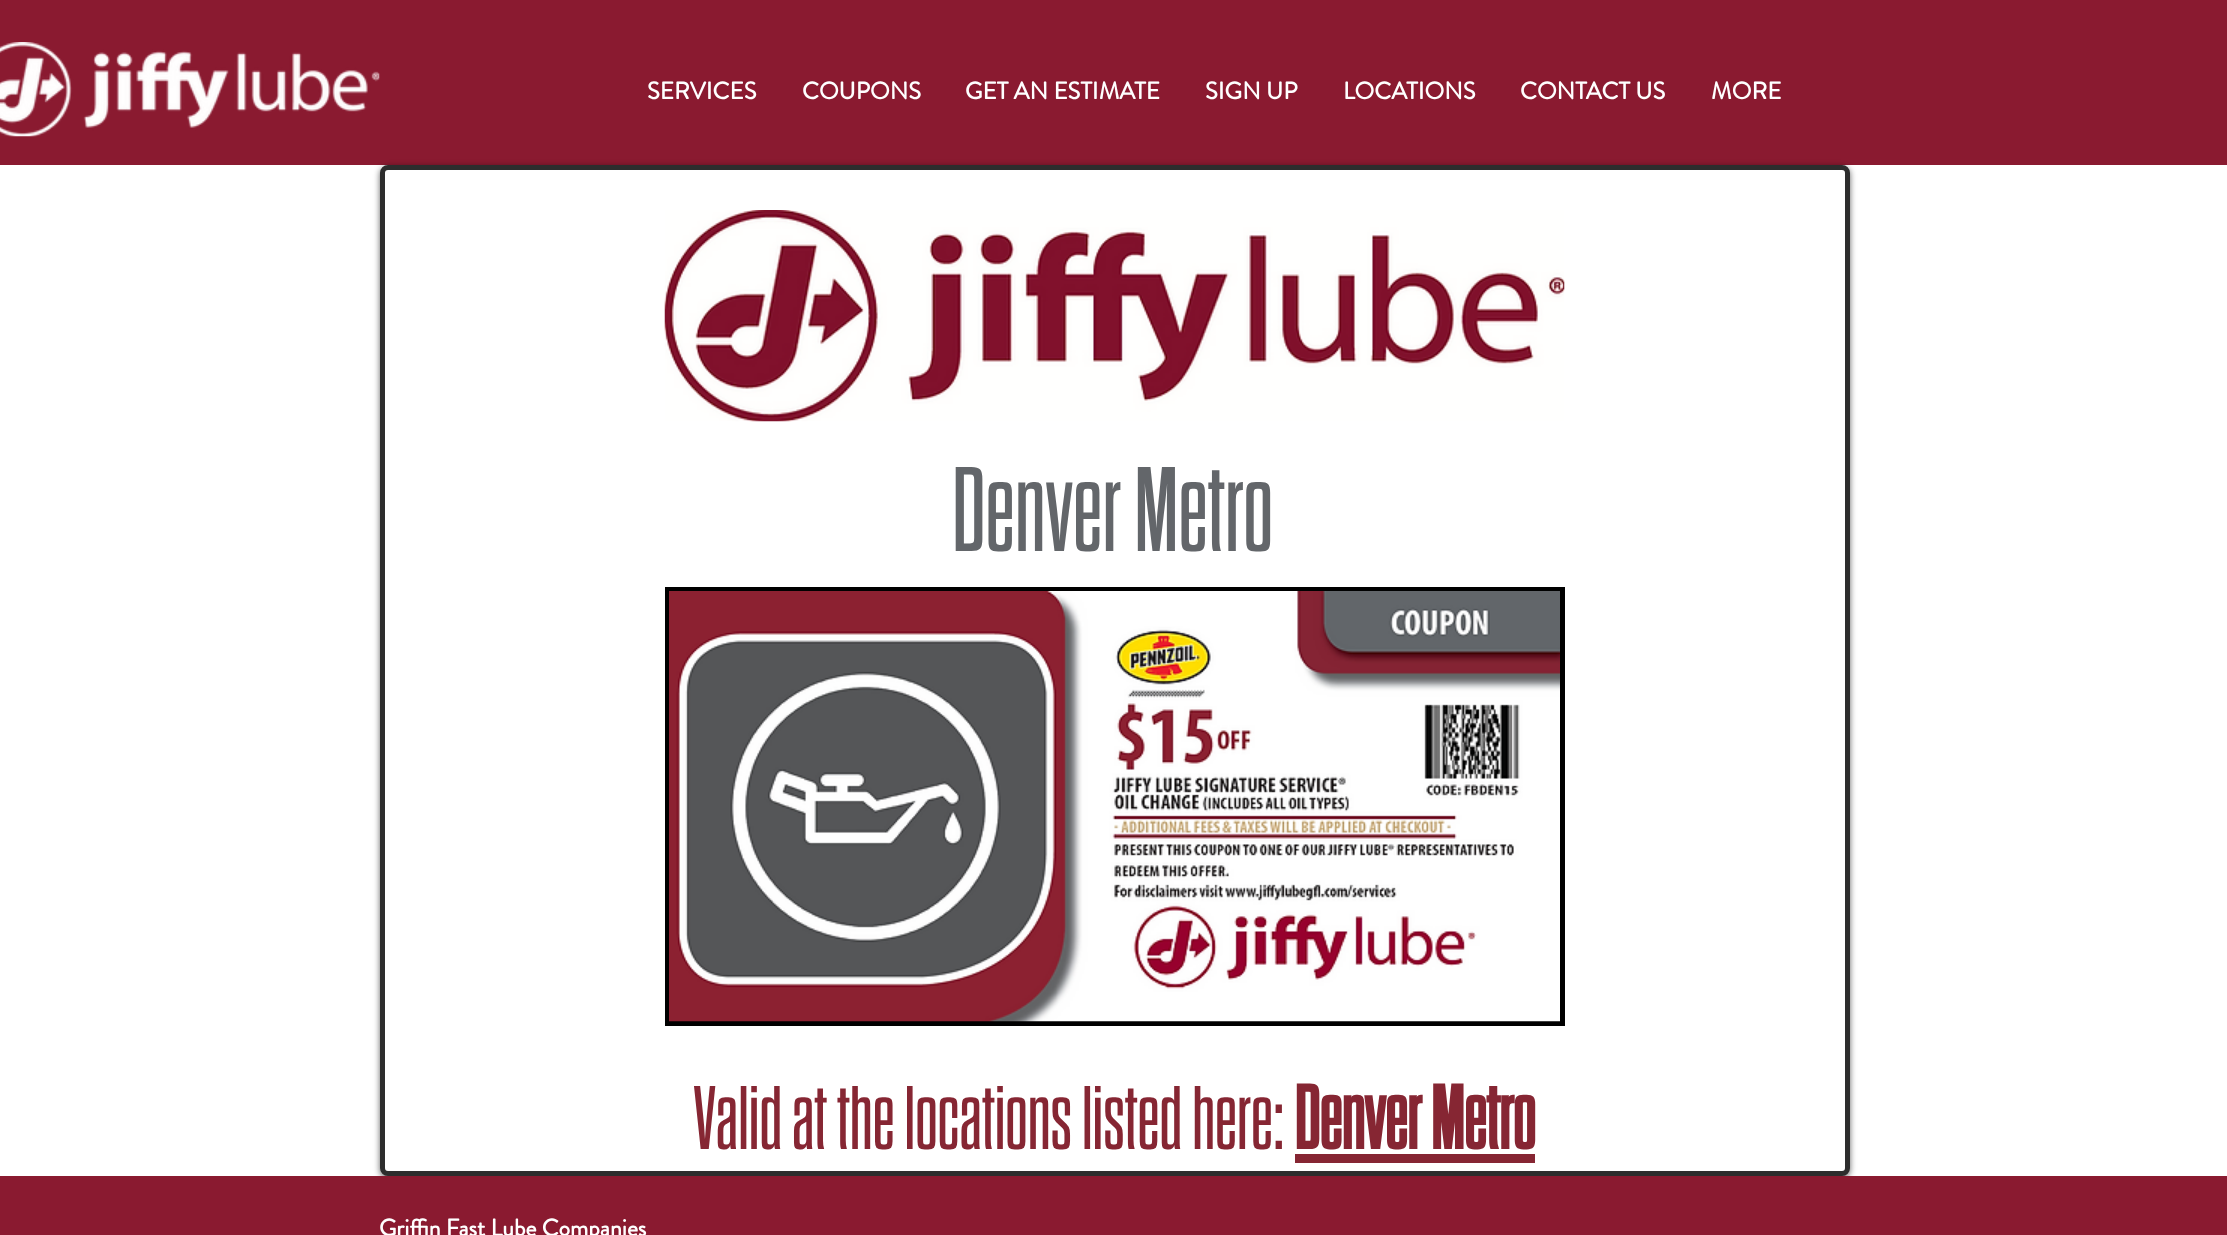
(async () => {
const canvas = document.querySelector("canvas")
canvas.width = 2227
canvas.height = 1235
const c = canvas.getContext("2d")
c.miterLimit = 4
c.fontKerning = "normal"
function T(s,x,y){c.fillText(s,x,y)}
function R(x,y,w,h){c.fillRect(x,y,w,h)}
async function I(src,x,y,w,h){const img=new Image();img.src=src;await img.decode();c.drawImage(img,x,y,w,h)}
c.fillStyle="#fff"
R(0,0,2227,1235)
c.fillStyle="#8a1a30"
R(0,0,2227,165)
await I("1.png",0,42,380,95)
c.font="bold 24px Brandon Grotesque"
c.fillStyle="#fff"
T("SERVICES",647,99)
T("COUPONS",802,99)
T("GET AN ESTIMATE",965,99)
T("SIGN UP",1205,99)
T("LOCATIONS",1343,99)
T("CONTACT US",1520,99)
T("MORE",1711,99)
c.fillStyle="#00000099"
c.filter="blur(3px)"
c.beginPath()
c.roundRect(380,167,1470,1011,8)
c.fill()
c.filter="none"
c.fillStyle="#fff"
c.beginPath()
c.roundRect(382.5,167.5,1465,1006,5.5)
c.fill()
c.strokeStyle="#2d2d2d"
c.lineWidth=5
c.stroke()
await I("2.png",664,210,901,212)
c.font="120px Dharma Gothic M"
c.fillStyle="#63666a"
T("Denver Metro",952,551)
c.fillStyle="#000"
R(665,587,900,439)
await I("3.png",669,591,891,431)
c.font="90px Dharma Gothic M"
c.fillStyle="#862633"
T("Valid at the locations listed here:",693,1149)
c.font="bold 90px Dharma Gothic M"
T("Denver Metro",1294,1149)
R(1295,1154,240,9)
c.fillStyle="#8a1a30"
R(0,1176,2227,59)
c.font="bold 24px Brandon Grotesque"
c.fillStyle="#fff"
T("Griffin Fast Lube Companies",379,1236)
})()
